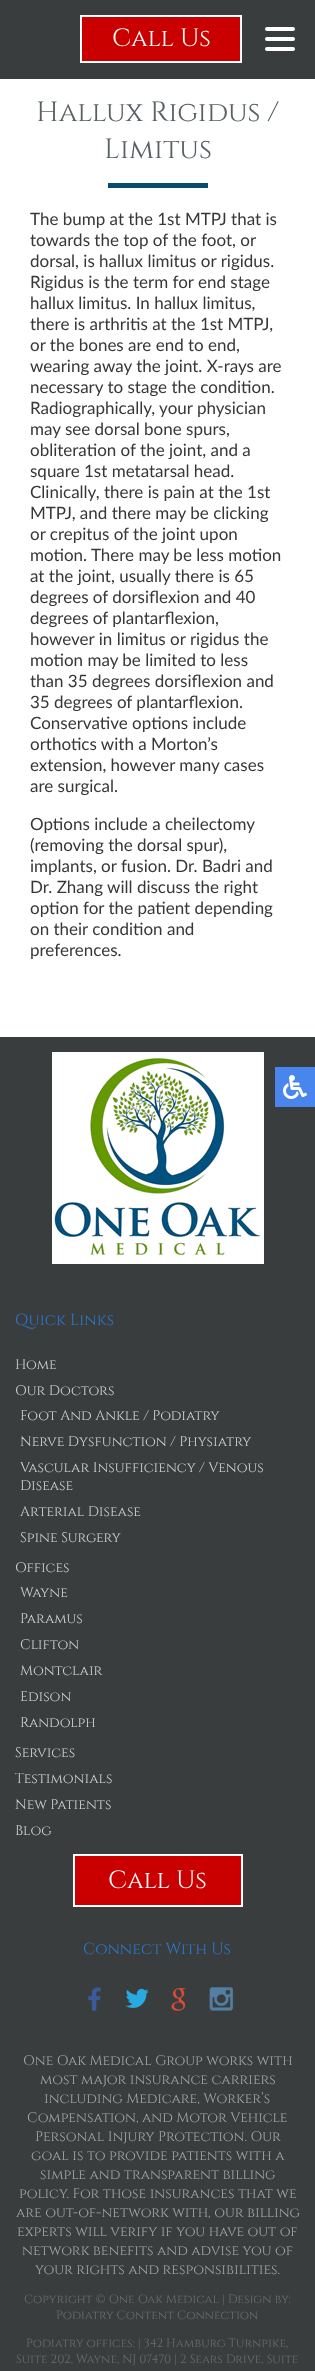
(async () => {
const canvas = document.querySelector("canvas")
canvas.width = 315
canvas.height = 2371
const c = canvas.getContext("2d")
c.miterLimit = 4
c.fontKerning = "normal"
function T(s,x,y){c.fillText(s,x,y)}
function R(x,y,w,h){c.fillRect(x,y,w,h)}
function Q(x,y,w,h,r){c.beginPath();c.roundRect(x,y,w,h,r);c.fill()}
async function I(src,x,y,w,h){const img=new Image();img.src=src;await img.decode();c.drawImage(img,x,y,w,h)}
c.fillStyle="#fff"
R(0,0,315,2371)
c.fillStyle="#3a3d3e"
R(0,0,315,79)
c.fillStyle="#ca0000"
c.beginPath()
c.rect(81,16,160,46)
c.fill()
c.strokeStyle="#fff"
c.lineWidth=2
c.stroke()
c.font="25px Cinzel"
c.fillStyle="#fff"
T("Call Us",112,46)
Q(265,27,30,4,2)
Q(265,37,30,4,2)
Q(265,47,30,4,2)
c.font="28px Cinzel"
c.fillStyle="#586064"
T("Hallux Rigidus /",36,121)
T("Limitus",104,158)
c.fillStyle="#094b6d"
R(108,183,100,5)
c.font="17px Lato"
c.fillStyle="#373737"
T("The bump at the 1st MTPJ that is",30,225)
T("towards the top of the foot, or",30,246)
T("dorsal, is hallux limitus or rigidus.",30,267)
T("Rigidus is the term for end stage",30,288)
T("hallux limitus. In hallux limitus,",30,309)
T("there is arthritis at the 1st MTPJ,",30,330)
T("or the bones are end to end,",30,351)
T("wearing away the joint. X-rays are",30,372)
T("necessary to stage the condition.",30,393)
T("Radiographically, your physician",30,414)
T("may see dorsal bone spurs,",30,435)
T("obliteration of the joint, and a",30,456)
T("square 1st metatarsal head.",30,477)
T("Clinically, there is pain at the 1st",30,498)
T("MTPJ, and there may be clicking",30,519)
T("or crepitus of the joint upon",30,540)
T("motion. There may be less motion",30,561)
T("at the joint, usually there is 65",30,582)
T("degrees of dorsiflexion and 40",30,603)
T("degrees of plantarflexion,",30,624)
T("however in limitus or rigidus the",30,645)
T("motion may be limited to less",30,666)
T("than 35 degrees dorsiflexion and",30,687)
T("35 degrees of plantarflexion.",30,708)
T("Conservative options include",30,729)
T("orthotics with a Morton’s",30,750)
T("extension, however many cases",30,771)
T("are surgical.",30,792)
T("Options include a cheilectomy",30,830)
T("(removing the dorsal spur),",30,851)
T("implants, or fusion. Dr. Badri and",30,872)
T("Dr. Zhang will discuss the right",30,893)
T("option for the patient depending",30,914)
T("on their condition and",30,935)
T("preferences.",30,956)
c.fillStyle="#3a3d3e"
R(0,1037,315,1334)
c.fillStyle="#4885ed"
R(275,1067,40,40)
await I("1.png",283,1075,24,24)
await I("2.png",52,1052,212,212)
c.font="16px Cinzel"
c.fillStyle="#2b77cb"
T("Quick Links",15,1325)
c.font="14px Cinzel"
c.fillStyle="#d1d1d0"
T("Home",15,1369)
T("Our Doctors",15,1395)
T("Foot And Ankle / Podiatry",20,1420)
T("Nerve Dysfunction / Physiatry",20,1446)
T("Vascular Insufficiency / Venous",20,1472)
T("Disease",20,1490)
T("Arterial Disease",20,1516)
T("Spine Surgery",20,1542)
T("Offices",15,1572)
T("Wayne",20,1597)
T("Paramus",20,1623)
T("Clifton",20,1649)
T("Montclair",20,1675)
T("Edison",20,1701)
T("Randolph",20,1727)
T("Services",15,1757)
T("Testimonials",15,1783)
T("New Patients",15,1809)
T("Blog",15,1835)
c.fillStyle="#ca0000"
c.beginPath()
c.rect(74,1855,168,51)
c.fill()
c.stroke()
c.font="25px Cinzel"
c.fillStyle="#fff"
T("Call Us",108,1888)
c.font="16px Cinzel"
c.fillStyle="#2b77cb"
T("Connect With Us",83,1954)
await I("3.png",88,1987,13,24)
await I("4.png",125,1988,24,21)
await I("5.png",171,1988,15,23)
await I("6.png",209,1987,24,24)
c.font="14px Cinzel"
c.fillStyle="#a4a4a4"
T("One Oak Medical Group works with",23,2065)
T("most major insurance carriers",40,2084)
T("including Medicare, Worker’s",44,2103)
T("Compensation, and Motor Vehicle",27,2122)
T("Personal Injury Protection. Our",35,2141)
T("goal is to provide patients with a",31,2160)
T("simple and transparent billing",40,2179)
T("policy. For those insurances that we",19,2198)
T("are out-of-network with, our billing",16,2217)
T("experts will verify if you have out of",17,2236)
T("network benefits and advise you of",22,2255)
T("your rights and responsibilities.",35,2274)
c.font="12px Cinzel"
c.fillStyle="#6e6d6d"
T("Copyright © One Oak Medical | Design by:",24,2303)
T("Podiatry Content Connection",56,2319)
T("Podiatry offices: | 342 Hamburg Turnpike,",26,2347)
T("Suite 202, Wayne, NJ 07470 | 2 Sears Drive, Suite",16,2363)
})()
